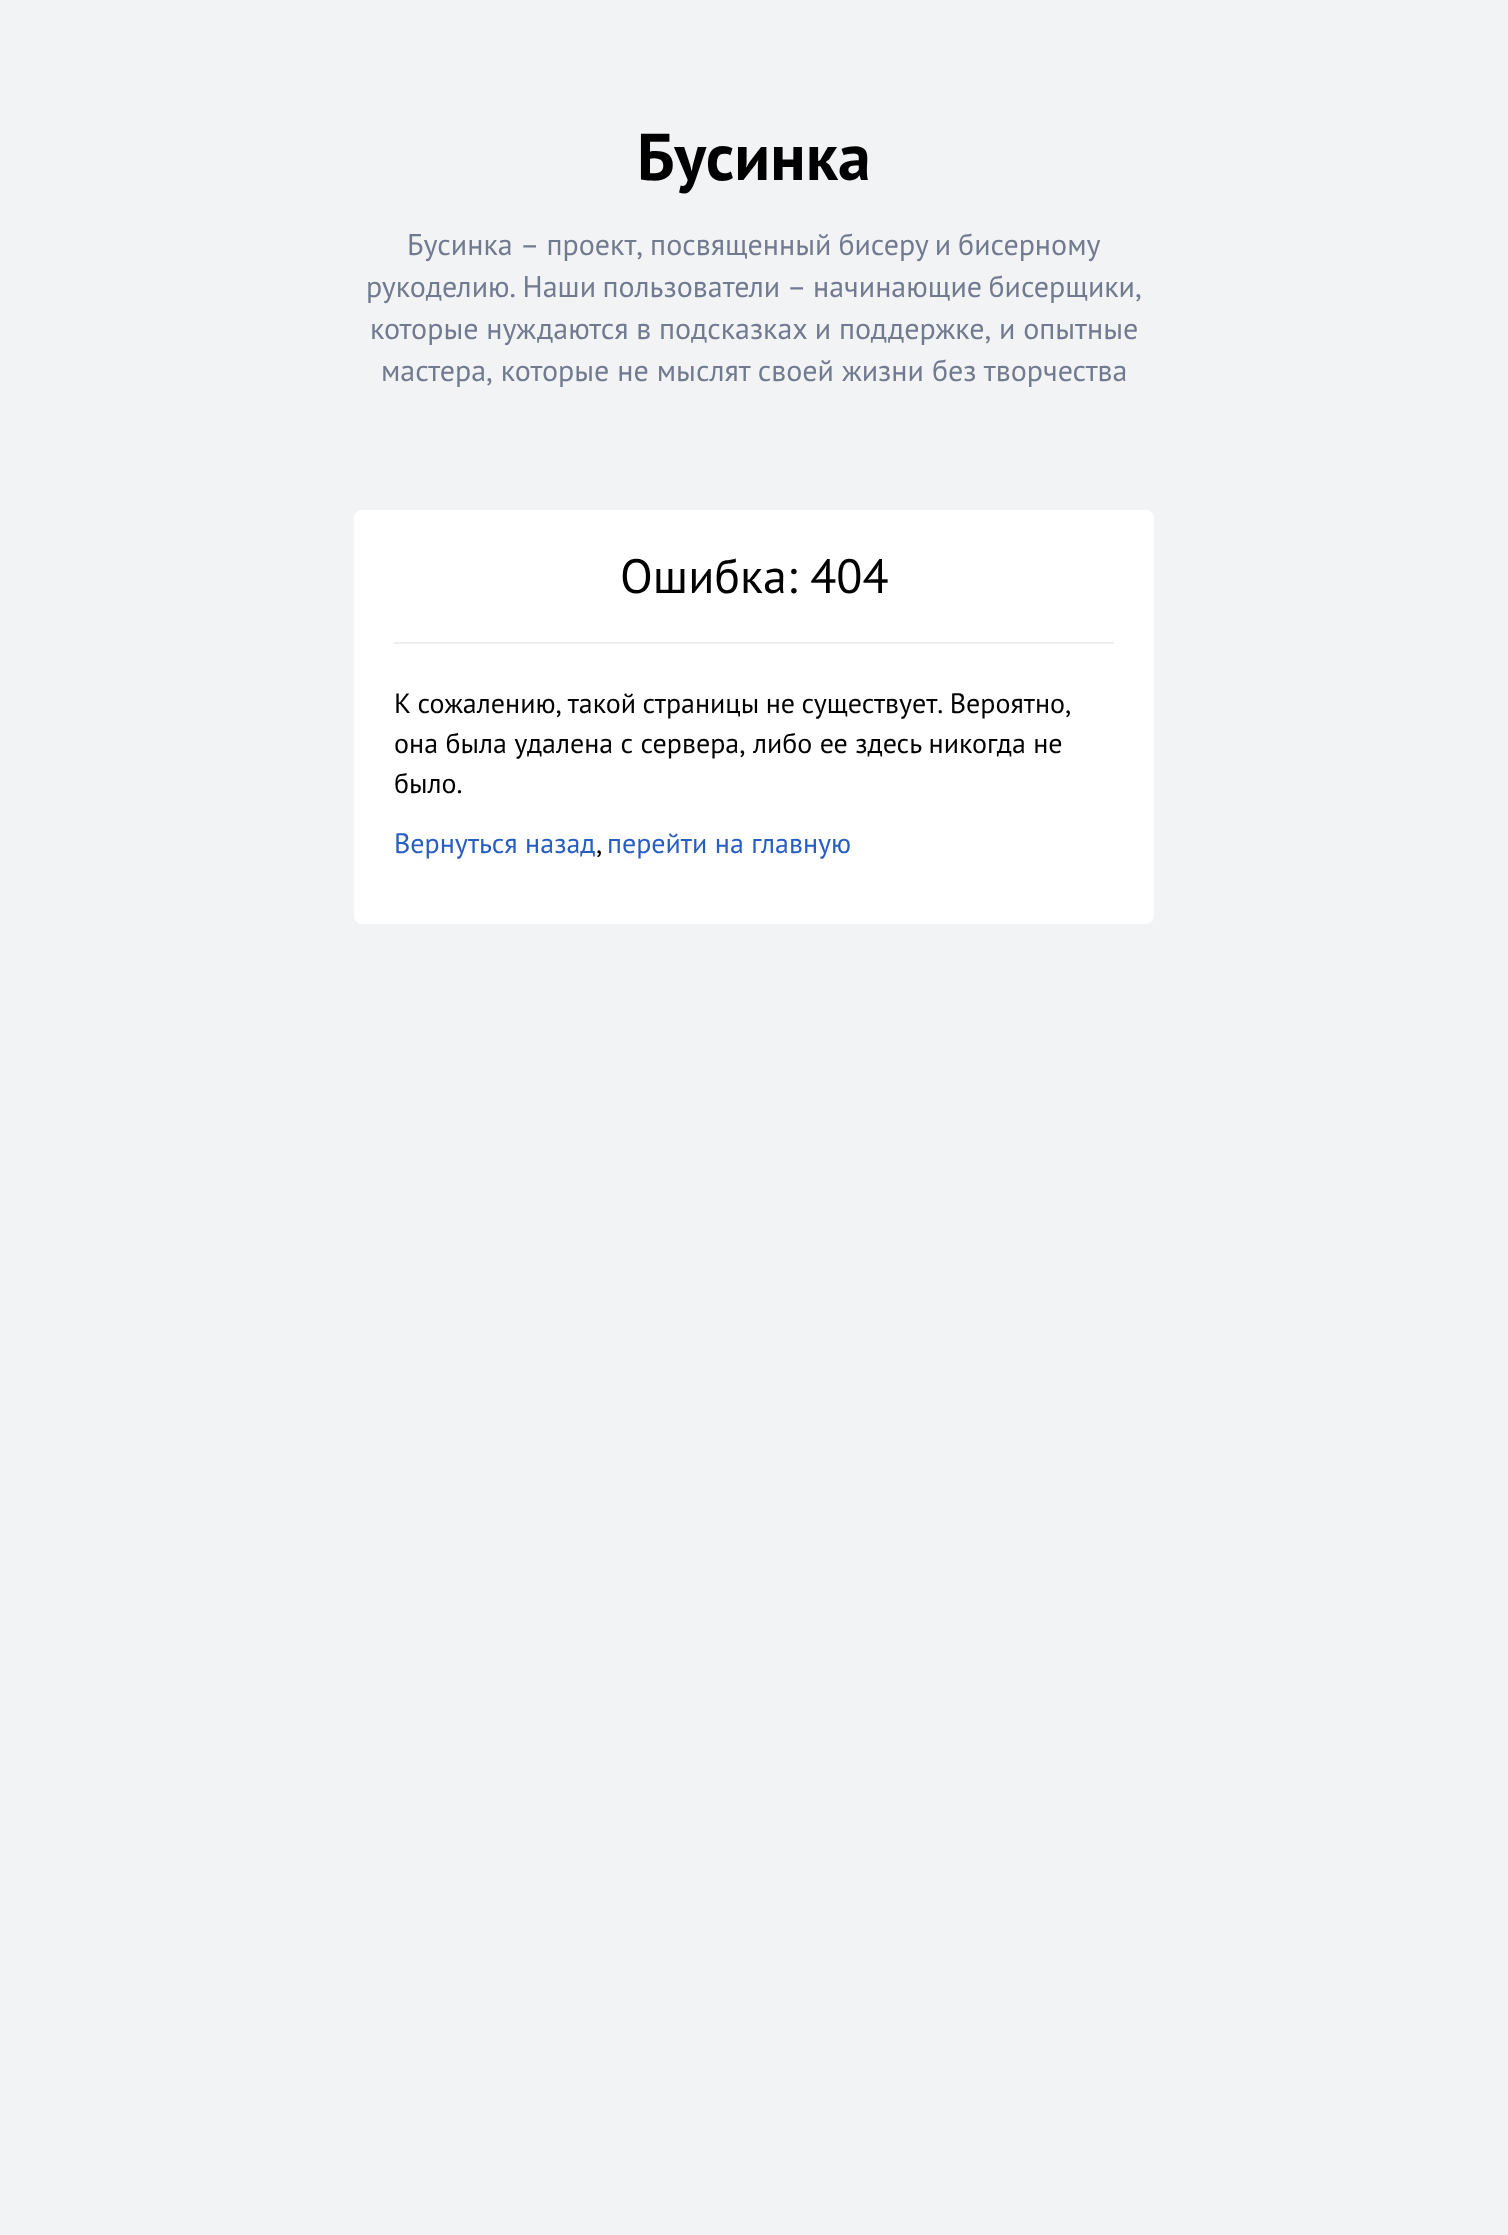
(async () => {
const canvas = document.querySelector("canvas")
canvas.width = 1508
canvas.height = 2235
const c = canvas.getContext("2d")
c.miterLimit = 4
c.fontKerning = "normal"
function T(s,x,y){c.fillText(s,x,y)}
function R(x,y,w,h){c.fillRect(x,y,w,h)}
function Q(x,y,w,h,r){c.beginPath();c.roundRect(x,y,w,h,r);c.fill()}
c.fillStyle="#f2f3f5"
R(0,0,1508,2235)
c.font="bold 66px PT Sans"
c.fillStyle="#000"
T("Бусинка",637,180)
c.wordSpacing="-1px"
c.font="30px PT Sans"
c.fillStyle="#727a90"
T("Бусинка – проект, посвященный бисеру и бисерному",407,255)
c.wordSpacing="-1.5px"
T("рукоделию. Наши пользователи – начинающие бисерщики,",366,297)
c.wordSpacing="-0.25px"
T("которые нуждаются в подсказках и поддержке, и опытные",370,339)
c.wordSpacing="0px"
T("мастера, которые не мыслят своей жизни без творчества",381,381)
c.fillStyle="#fff"
Q(354,510,800,414,8)
c.fillStyle="#eee"
R(394,642,720,2)
c.font="48px PT Sans"
c.fillStyle="#000"
T("Ошибка: 404",620,593)
c.wordSpacing="-1px"
c.font="28px PT Sans"
T("К сожалению, такой страницы не существует. Вероятно,",394,713)
c.wordSpacing="-0.1px"
T("она была удалена с сервера, либо ее здесь никогда не",394,753)
c.wordSpacing="0px"
T("было.",394,793)
c.fillStyle="#275ec2"
T("Вернуться назад",394,853)
c.fillStyle="#000"
T(",",596,853)
c.fillStyle="#275ec2"
T("перейти на главную",607,853)
})()
